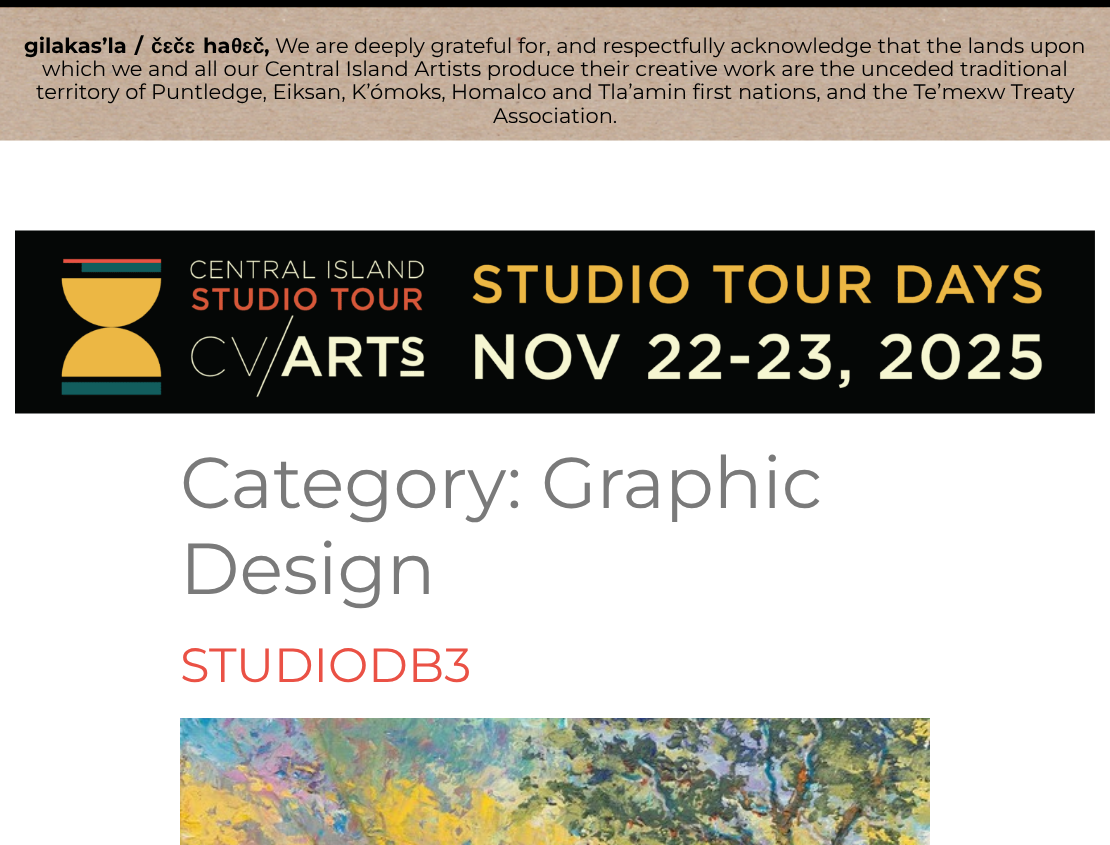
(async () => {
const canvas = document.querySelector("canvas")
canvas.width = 1110
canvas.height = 845
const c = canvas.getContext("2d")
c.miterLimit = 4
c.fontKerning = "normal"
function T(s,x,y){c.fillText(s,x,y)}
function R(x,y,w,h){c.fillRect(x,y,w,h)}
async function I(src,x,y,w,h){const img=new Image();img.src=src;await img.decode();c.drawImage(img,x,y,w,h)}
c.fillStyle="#fff"
R(0,0,1110,845)
c.fillStyle="#000"
R(0,0,1110,8)
c.fillStyle="#fafaf7"
R(0,8,1110,133)
await I("1.png",0,7,1110,134)
c.wordSpacing="2px"
c.font="bold 21px Montserrat"
c.fillStyle="#000"
T("gilakas’la /",24,53)
c.wordSpacing="0px"
c.font="bold 21px Liberation Sans"
T("čɛčɛ",151,53)
c.font="bold 21px Montserrat"
T("ha",203,53)
c.font="bold 21px Liberation Sans"
T("θɛč",231,53)
c.font="bold 21px Montserrat"
T(",",264,53)
c.font="21px Montserrat"
T("We are deeply grateful for, and respectfully acknowledge that the lands upon",275,53)
T("which we and all our Central Island Artists produce their creative work are the unceded traditional",42,76)
T("territory of Puntledge, Eiksan, K’ómoks, Homalco and Tla’amin first nations, and the Te’mexw Treaty",36,99)
T("Association.",493,123)
await I("2.png",15,230,1080,184)
c.font="72px Montserrat"
c.fillStyle="#7a7a7a"
T("Category: Graphic",180,508)
T("Design",180,594)
c.font="48px Montserrat"
c.fillStyle="#ea5145"
T("STUDIODB3",180,682)
await I("3.png",180,718,750,127)
})()
